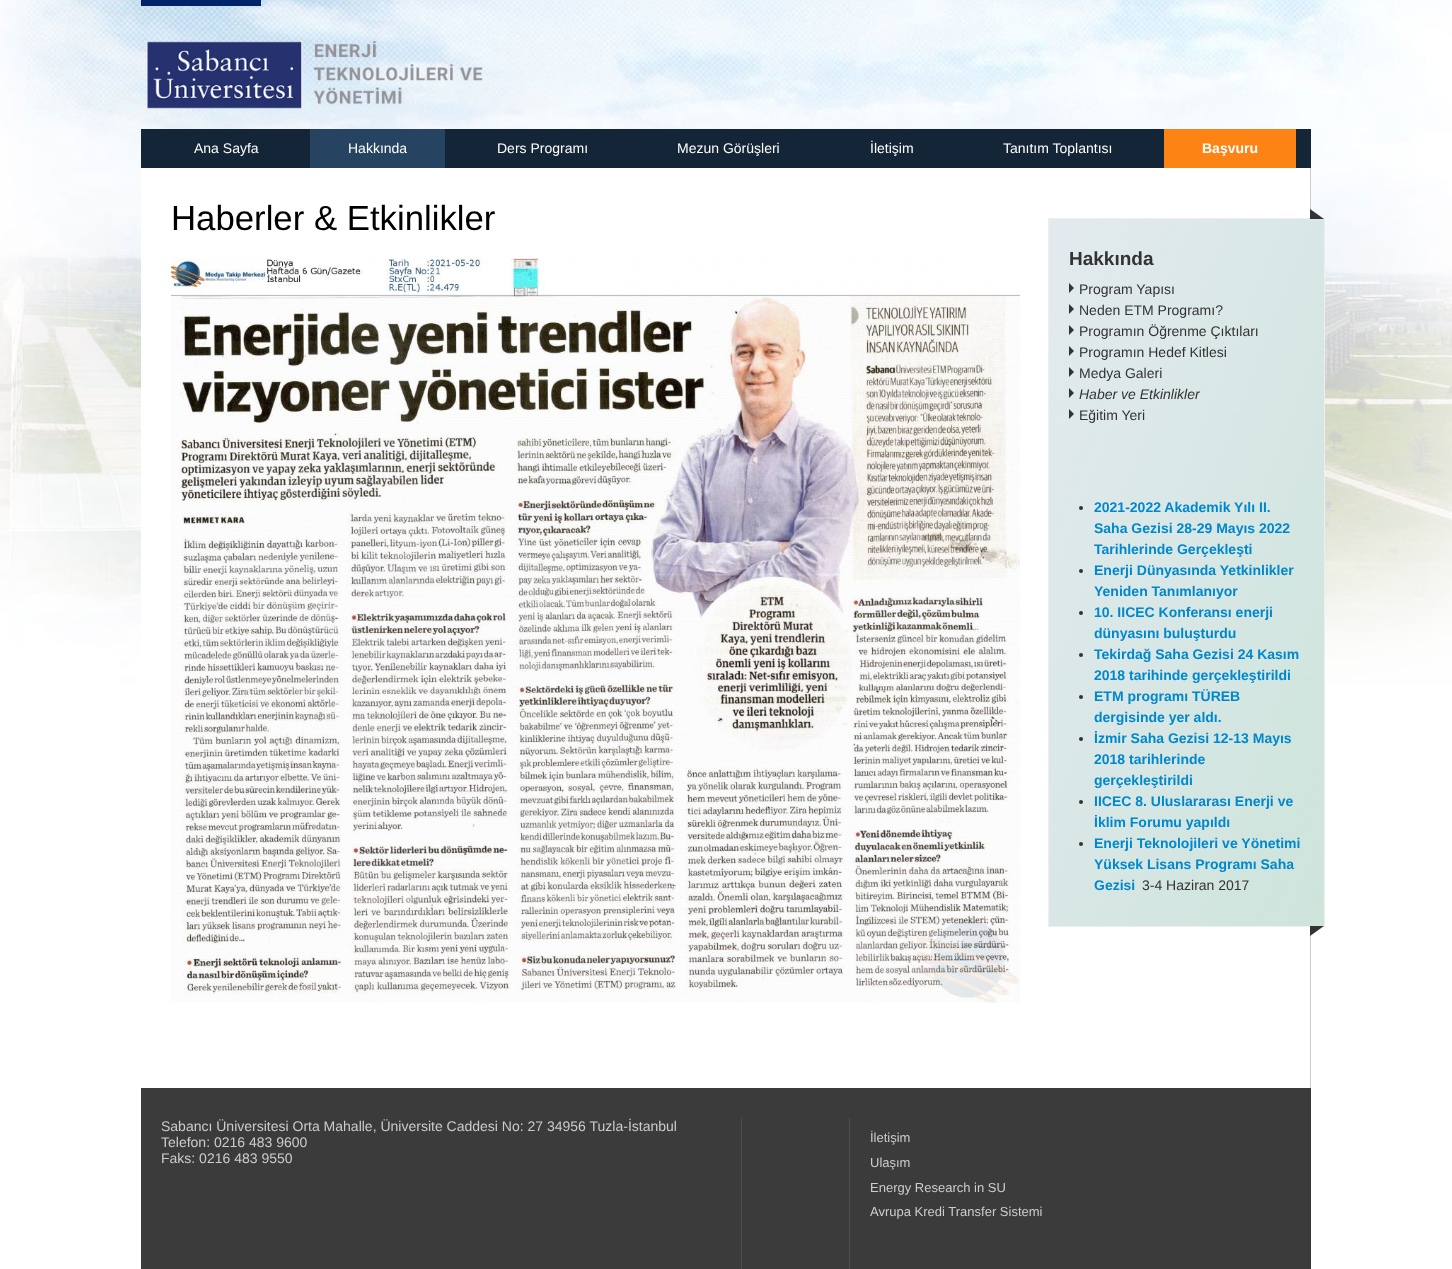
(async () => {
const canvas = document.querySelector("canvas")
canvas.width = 1452
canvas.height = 1269
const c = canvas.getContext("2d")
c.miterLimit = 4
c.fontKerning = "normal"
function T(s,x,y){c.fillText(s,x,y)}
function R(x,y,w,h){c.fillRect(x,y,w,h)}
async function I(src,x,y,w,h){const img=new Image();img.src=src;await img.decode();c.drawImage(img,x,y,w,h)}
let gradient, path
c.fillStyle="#fff"
R(0,0,1452,1269)
await I("1.png",0,0,1452,684)
c.fillStyle="#01236a"
R(141,0,120,6)
await I("2.png",146,40,337,69)
c.fillStyle="#132537"
R(141,129,1170,39)
c.font="14px Liberation Sans"
c.fillStyle="#fff"
T("Ana Sayfa",194,153)
c.fillStyle="#264462"
R(310,129,135,39)
c.fillStyle="#fff"
T("Hakkında",348,153)
T("Ders Programı",497,153)
T("Mezun Görüşleri",677,153)
T("İletişim",870,153)
T("Tanıtım Toplantısı",1003,153)
c.fillStyle="#fe8315"
R(1164,129,132,39)
c.font="bold 14px Liberation Sans"
c.fillStyle="#fff"
T("Başvuru",1202,153)
R(141,168,1169,516)
c.fillStyle="#ccc"
R(1310,168,1,920)
c.font="34.75px Liberation Sans"
c.fillStyle="#000"
T("Haberler & Etkinlikler",171,230)
await I("3.png",171,258,849,745)
gradient = c.createLinearGradient(948,480,1425,665)
gradient.addColorStop(0,"#e3eaef")
gradient.addColorStop(1,"#cde4db")
c.fillStyle = gradient
R(1049,219,275,707)
c.strokeStyle="#eee"
c.strokeRect(1048.5,218.5,276,708)
c.fillStyle="#333"
path = new Path2D("M1324 219h-14v-10z")
c.fill(path)
c.font="bold 19px Liberation Sans"
T("Hakkında",1069,265)
path = new Path2D("M1069 293v-10l5 5z")
c.fill(path)
c.font="14px Liberation Sans"
T("Program Yapısı",1079,294)
path = new Path2D("M1069 314v-10l5 5z")
c.fill(path)
T("Neden ETM Programı?",1079,315)
path = new Path2D("M1069 335v-10l5 5z")
c.fill(path)
T("Programın Öğrenme Çıktıları",1079,336)
path = new Path2D("M1069 356v-10l5 5z")
c.fill(path)
T("Programın Hedef Kitlesi",1079,357)
path = new Path2D("M1069 377v-10l5 5z")
c.fill(path)
T("Medya Galeri",1079,378)
path = new Path2D("M1069 398v-10l5 5z")
c.fill(path)
c.font="italic 14px Liberation Sans"
T("Haber ve Etkinlikler",1079,399)
path = new Path2D("M1069 419v-10l5 5z")
c.fill(path)
c.font="14px Liberation Sans"
T("Eğitim Yeri",1079,420)
c.beginPath()
c.arc(1081,508,2,0,7)
c.fill()
c.font="bold 14px Liberation Sans"
c.fillStyle="#08c"
T("2021-2022 Akademik Yılı II.",1094,512)
T("Saha Gezisi 28-29 Mayıs 2022",1094,533)
T("Tarihlerinde Gerçekleşti",1094,554)
c.fillStyle="#333"
c.beginPath()
c.arc(1081,571,2,0,7)
c.fill()
c.fillStyle="#08c"
T("Enerji Dünyasında Yetkinlikler",1094,575)
T("Yeniden Tanımlanıyor",1094,596)
c.fillStyle="#333"
c.beginPath()
c.arc(1081,613,2,0,7)
c.fill()
c.fillStyle="#08c"
T("10. IICEC Konferansı enerji",1094,617)
T("dünyasını buluşturdu",1094,638)
c.fillStyle="#333"
c.beginPath()
c.arc(1081,655,2,0,7)
c.fill()
c.fillStyle="#08c"
T("Tekirdağ Saha Gezisi 24 Kasım",1094,659)
T("2018 tarihinde gerçekleştirildi",1094,680)
c.fillStyle="#333"
c.beginPath()
c.arc(1081,697,2,0,7)
c.fill()
c.fillStyle="#08c"
T("ETM programı TÜREB",1094,701)
T("dergisinde yer aldı.",1094,722)
c.fillStyle="#333"
c.beginPath()
c.arc(1081,739,2,0,7)
c.fill()
c.fillStyle="#08c"
T("İzmir Saha Gezisi 12-13 Mayıs",1094,743)
T("2018 tarihlerinde",1094,764)
T("gerçekleştirildi",1094,785)
c.fillStyle="#333"
c.beginPath()
c.arc(1081,802,2,0,7)
c.fill()
c.fillStyle="#08c"
T("IICEC 8. Uluslararası Enerji ve",1094,806)
T("İklim Forumu yapıldı",1094,827)
c.fillStyle="#333"
c.beginPath()
c.arc(1081,844,2,0,7)
c.fill()
c.fillStyle="#08c"
T("Enerji Teknolojileri ve Yönetimi",1094,848)
T("Yüksek Lisans Programı Saha",1094,869)
T("Gezisi",1094,890)
c.font="14px Liberation Sans"
c.fillStyle="#333"
T("3-4 Haziran 2017",1142,890)
path = new Path2D("M1310 926h14l-14 10z")
c.fill(path)
c.fillStyle="#3c3b3b"
R(141,1088,1170,181)
c.fillStyle="#ccc"
T("Sabancı Üniversitesi Orta Mahalle, Üniversite Caddesi No: 27 34956 Tuzla-İstanbul",161,1131)
T("Telefon: 0216 483 9600",161,1147)
T("Faks: 0216 483 9550",161,1163)
c.fillStyle="#4e4d4d"
R(741,1118,1,151)
R(849,1118,1,151)
c.font="13px Liberation Sans"
c.fillStyle="#ccc"
T("İletişim",870,1142)
T("Ulaşım",870,1167)
T("Energy Research in SU",870,1192)
T("Avrupa Kredi Transfer Sistemi",870,1216)
})()
